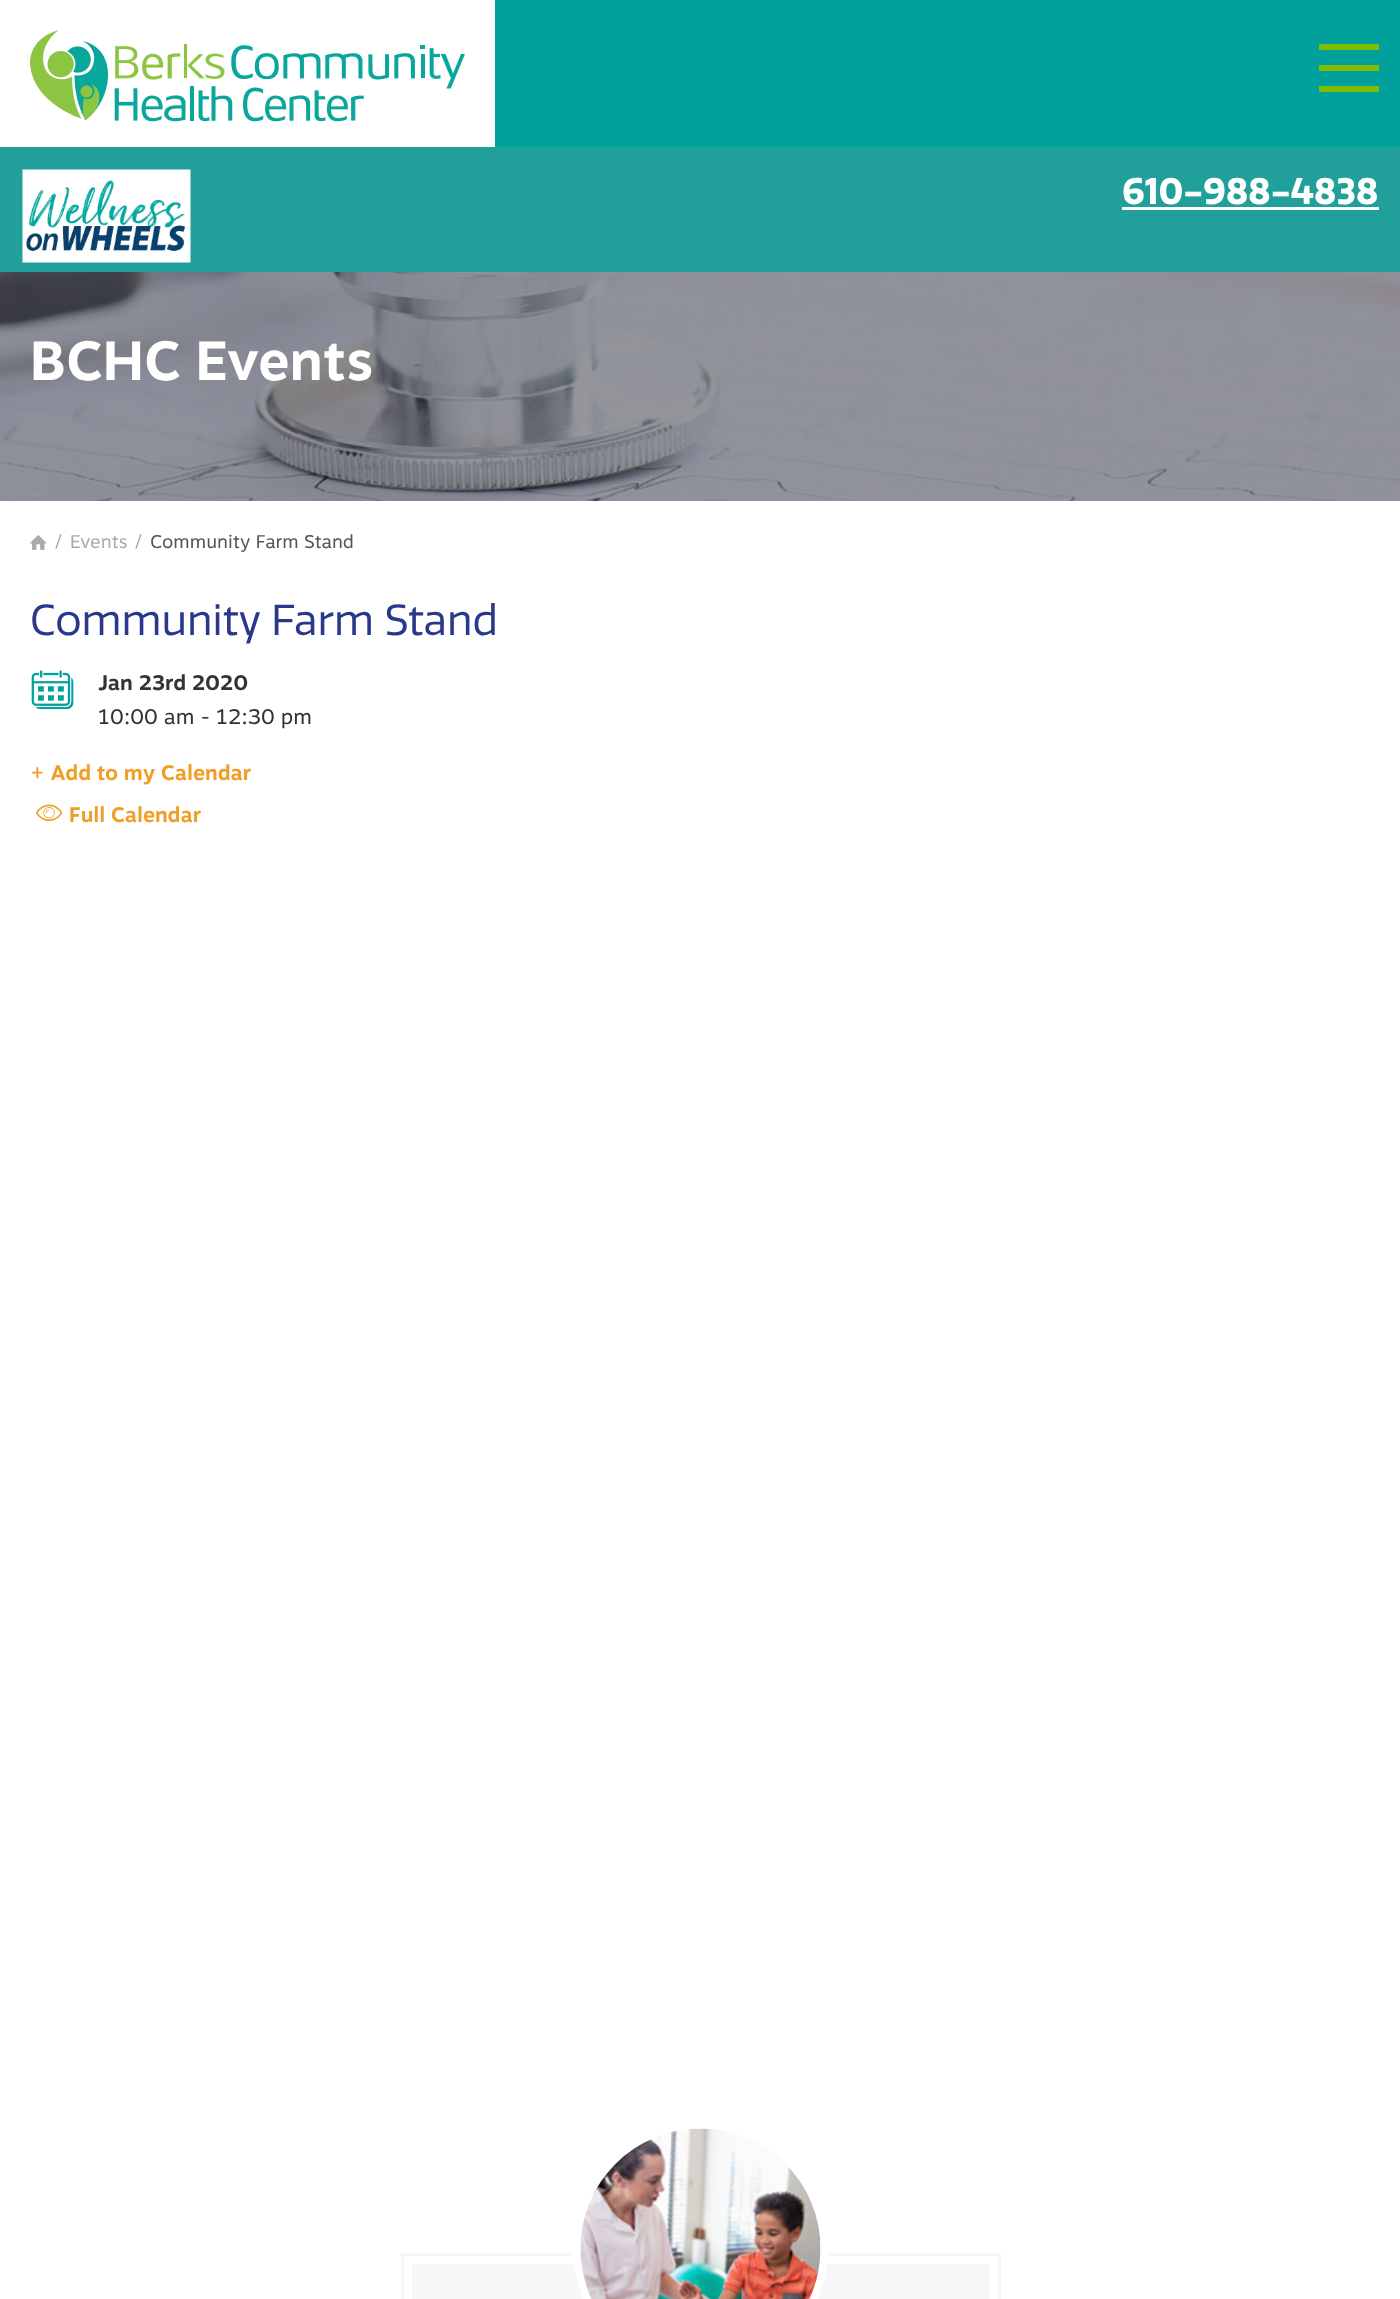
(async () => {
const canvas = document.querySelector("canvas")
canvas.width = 1400
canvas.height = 2299
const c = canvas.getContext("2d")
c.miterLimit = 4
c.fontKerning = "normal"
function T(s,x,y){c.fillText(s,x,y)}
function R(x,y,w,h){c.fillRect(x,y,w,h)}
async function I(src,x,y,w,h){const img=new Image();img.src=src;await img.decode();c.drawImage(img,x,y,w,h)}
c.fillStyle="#fff"
R(0,0,1400,2299)
c.fillStyle="#00a09b"
R(495,0,905,147)
await I("1.png",30,30,435,92)
c.fillStyle="#7fbc03"
R(1319,86,60,6)
R(1319,44,60,6)
R(1319,65,60,6)
c.fillStyle="#219f9a"
R(0,147,1400,125)
await I("2.png",22,169,169,94)
c.font="bold 36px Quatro"
c.fillStyle="#fff"
T("610-988-4838",1122,204)
R(1122,207,257,3)
await I("3.png",0,272,1400,229)
c.font="bold 55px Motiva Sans"
T("BCHC Events",30,380)
await I("4.png",30,535,17,15)
c.font="18.4px Motiva Sans"
c.fillStyle="#aaa"
T("/",55,548)
T("Events",70,548)
T("/",135,548)
c.fillStyle="#555"
T("Community Farm Stand",150,548)
c.font="42px Quatro"
c.fillStyle="#29388a"
T("Community Farm Stand",30,635)
await I("5.png",31,670,43,40)
c.font="bold 21px Motiva Sans"
c.fillStyle="#333"
T("Jan 23rd 2020",98,690)
c.font="21px Motiva Sans"
T("10:00 am - 12:30 pm",98,724)
c.font="bold 21px Motiva Sans"
c.fillStyle="#f09e28"
T("+ Add to my Calendar",30,780)
await I("6.png",36,804,27,17)
T("Full Calendar",69,822)
c.strokeStyle="#f5f8f7"
c.lineWidth=3
c.strokeRect(402.5,2254.5,597,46)
c.fillStyle="#f5f8f7"
R(412,2264,578,35)
c.beginPath()
c.arc(700.5,2248.5,123.5,0,7)
c.strokeStyle="#fff"
c.lineWidth=8
c.stroke()
await I("7.png",580,2128,241,171)
})()
